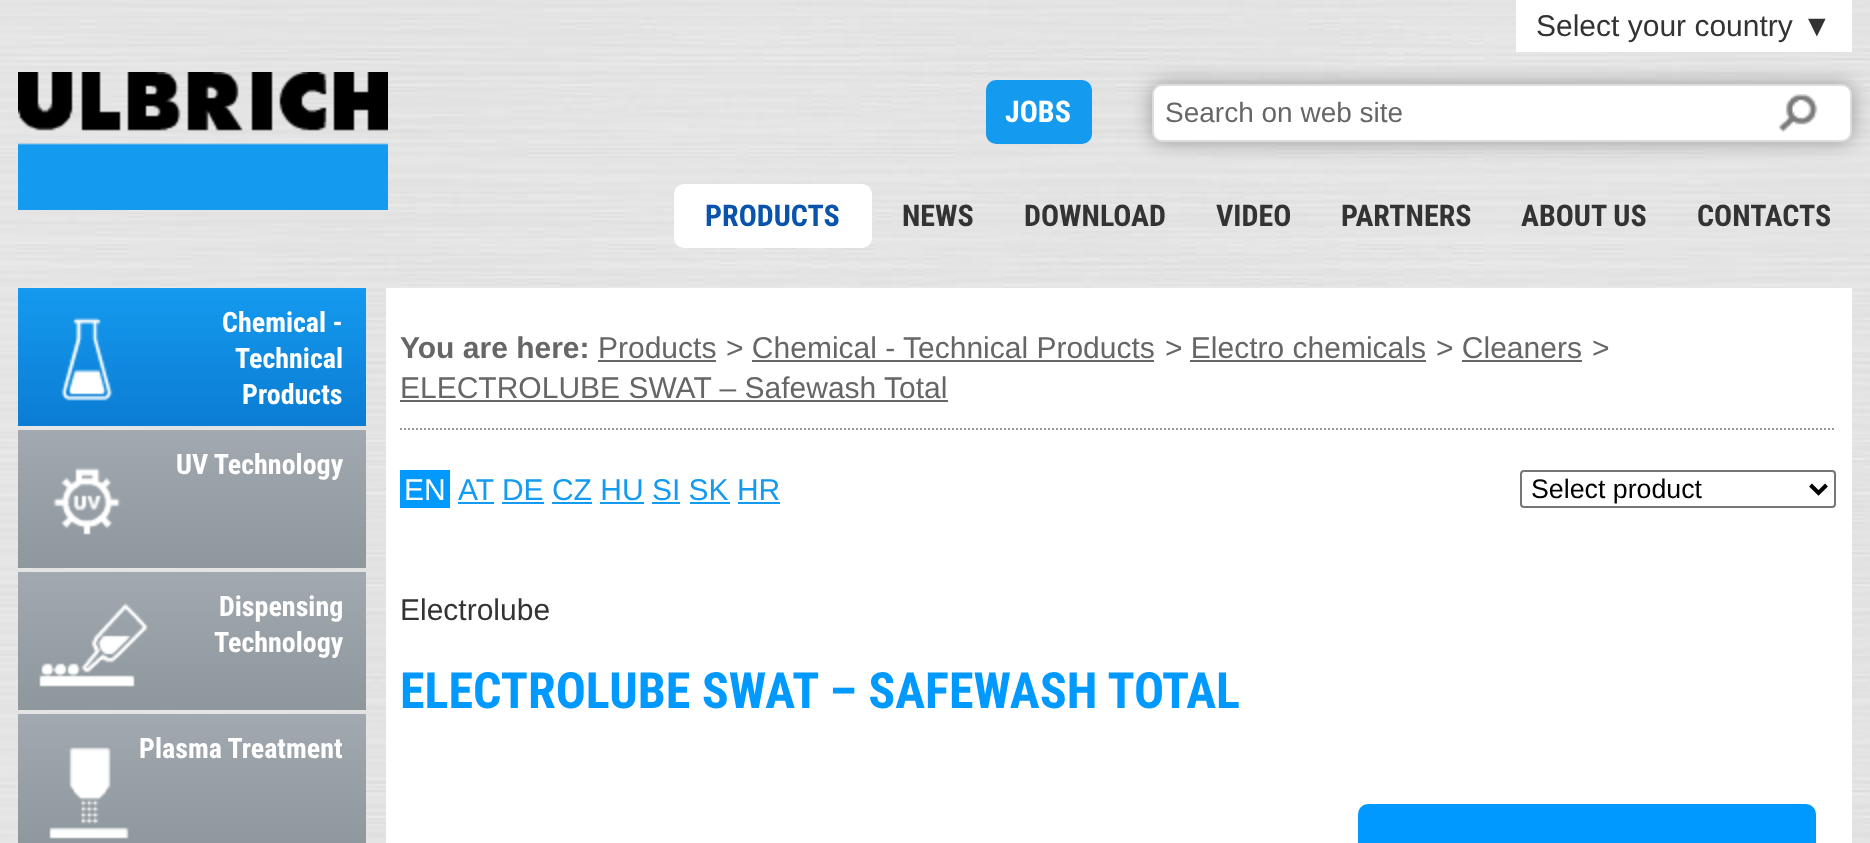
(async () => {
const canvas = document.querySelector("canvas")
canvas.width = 1870
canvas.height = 843
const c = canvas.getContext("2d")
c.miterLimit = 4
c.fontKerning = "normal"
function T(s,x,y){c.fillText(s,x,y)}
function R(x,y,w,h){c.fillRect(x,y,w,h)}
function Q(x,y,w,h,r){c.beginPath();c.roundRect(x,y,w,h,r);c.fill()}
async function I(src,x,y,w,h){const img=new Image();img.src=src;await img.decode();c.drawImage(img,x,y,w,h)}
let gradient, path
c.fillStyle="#fff"
R(0,0,1870,843)
await I("1.png",0,0,1870,843)
R(1516,0,336,52)
c.font="30px Liberation Sans"
c.fillStyle="#333"
T("Select your country",1536,36)
c.font="italic 30px Liberation Sans"
T("▼",1802,36)
await I("2.png",18,72,370,138)
c.fillStyle="#149aef"
Q(986,80,106,64,10)
c.font="bold 30px Roboto Condensed"
c.fillStyle="#fff"
T("JOBS",1005,122)
c.fillStyle="#999"
c.filter="blur(10px)"
c.beginPath()
c.roundRect(1152,84,700,58,10)
c.fill()
c.filter="none"
c.fillStyle="#fff"
c.beginPath()
c.roundRect(1153,85,698,56,9)
c.fill()
c.strokeStyle="#ddd"
c.lineWidth=2
c.stroke()
c.font="28px Liberation Sans"
c.fillStyle="#666"
T("Search on web site",1165,122)
await I("3.png",1778,94,40,38)
c.fillStyle="#fff"
Q(674,184,198,64,10)
c.font="bold 30px Roboto Condensed"
c.fillStyle="#0953ac"
T("PRODUCTS",705,226)
c.fillStyle="#333"
T("NEWS",902,226)
T("DOWNLOAD",1024,226)
T("VIDEO",1216,226)
T("PARTNERS",1341,226)
T("ABOUT US",1521,226)
T("CONTACTS",1697,226)
gradient = c.createLinearGradient(192,288,192,426)
gradient.addColorStop(0,"#149aef")
gradient.addColorStop(1,"#0b7cd3")
c.fillStyle = gradient
R(18,288,348,138)
await I("4.png",61,317,52,84)
c.font="bold 28px Roboto Condensed"
c.fillStyle="#fff"
T("Chemical -",222,332)
T("Technical",235,368)
T("Products",242,404)
gradient = c.createLinearGradient(192,430,192,568)
gradient.addColorStop(0,"#a2a9b0")
gradient.addColorStop(1,"#8d979c")
c.fillStyle = gradient
R(18,430,348,138)
await I("5.png",53,467,68,68)
c.fillStyle="#fff"
T("UV Technology",176,474)
gradient = c.createLinearGradient(192,572,192,710)
gradient.addColorStop(0,"#a2a9b0")
gradient.addColorStop(1,"#8d979c")
c.fillStyle = gradient
R(18,572,348,138)
await I("6.png",39,603,110,84)
c.fillStyle="#fff"
T("Dispensing",219,616)
T("Technology",214,652)
gradient = c.createLinearGradient(192,714,192,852)
gradient.addColorStop(0,"#a2a9b0")
gradient.addColorStop(1,"#8d979c")
c.fillStyle = gradient
R(18,714,348,129)
await I("7.png",49,747,80,92)
c.fillStyle="#fff"
T("Plasma Treatment",139,758)
R(386,288,1466,555)
path = new Path2D("M400 429h1436")
c.strokeStyle="#999"
c.setLineDash([2,2])
c.stroke(path)
c.font="bold 30px Liberation Sans"
c.fillStyle="#666"
T("You are here:",400,358)
c.font="30px Liberation Sans"
T("Products",598,358)
R(598,360,118,2)
T("> Chemical - Technical Products",726,358)
T("> Electro chemicals",1165,358)
T("> Cleaners",1436,358)
T(">",1592,358)
R(752,360,402,2)
R(1190,360,236,2)
R(1462,360,120,2)
T("ELECTROLUBE SWAT – Safewash Total",400,398)
R(400,400,548,2)
c.fillStyle="#09f"
R(400,470,50,38)
c.fillStyle="#fff"
T("EN",404,500)
c.fillStyle="#149aef"
T("AT DE CZ HU SI SK HR",458,500)
R(458,502,36,2)
R(502,502,42,2)
R(552,502,40,2)
R(600,502,44,2)
R(652,502,28,2)
R(690,502,40,2)
R(738,502,42,2)
c.beginPath()
c.roundRect(1521,471,314,36,3)
c.strokeStyle="#767676"
c.setLineDash([])
c.stroke()
path = new Path2D("M1810.5 485l8 8l8-8")
c.strokeStyle="#000"
c.lineWidth=4
c.stroke(path)
c.font="26.75px Liberation Sans"
c.fillStyle="#000"
T("Select product",1531,498)
c.font="30px Liberation Sans"
c.fillStyle="#333"
T("Electrolube",400,620)
c.font="bold 50px Roboto Condensed"
c.fillStyle="#09f"
T("ELECTROLUBE SWAT – SAFEWASH TOTAL",400,708)
Q(1358,804,458,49,10)
})()
